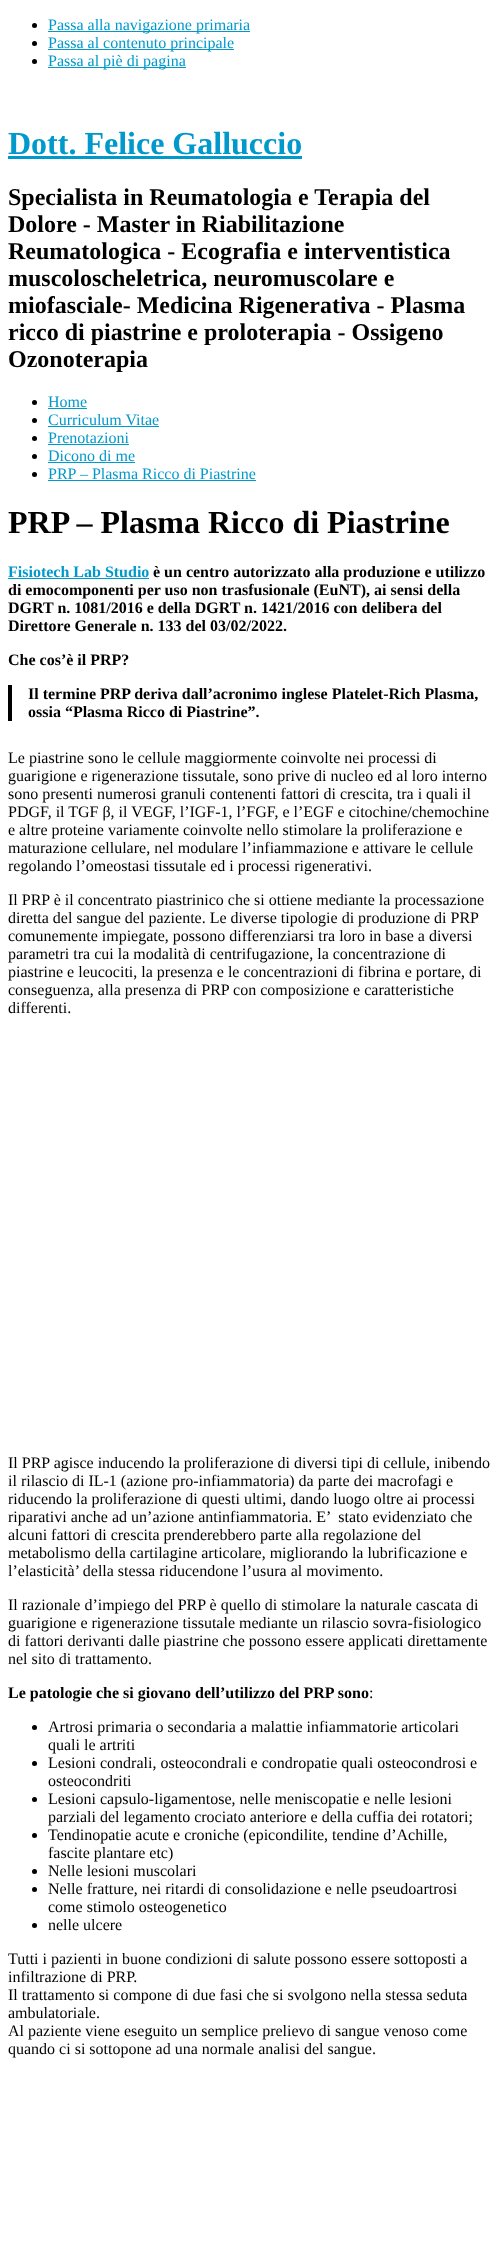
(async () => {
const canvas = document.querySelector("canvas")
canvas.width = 501
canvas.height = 2247
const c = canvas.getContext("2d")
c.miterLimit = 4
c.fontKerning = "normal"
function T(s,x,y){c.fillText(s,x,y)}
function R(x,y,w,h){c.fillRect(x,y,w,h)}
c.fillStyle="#fff"
R(0,0,501,2247)
c.fillStyle="#000"
c.beginPath()
c.arc(34.5,25.5,2.5,0,7)
c.fill()
c.fillStyle="#09c"
R(48,31,202,1)
c.font="16px Liberation Serif"
T("Passa alla navigazione primaria",48,30)
c.fillStyle="#000"
c.beginPath()
c.arc(34.5,43.5,2.5,0,7)
c.fill()
c.fillStyle="#09c"
R(48,49,186,1)
T("Passa al contenuto principale",48,48)
c.fillStyle="#000"
c.beginPath()
c.arc(34.5,61.5,2.5,0,7)
c.fill()
c.fillStyle="#09c"
R(48,67,138,1)
T("Passa al piè di pagina",48,66)
c.font="bold 32px Liberation Serif"
T("Dott. Felice Galluccio",8,154)
R(8,156,294,3)
c.font="bold 24px Liberation Serif"
c.fillStyle="#000"
T("Specialista in Reumatologia e Terapia del",8,205)
T("Dolore - Master in Riabilitazione",8,232)
T("Reumatologica - Ecografia e interventistica",8,259)
T("muscoloscheletrica, neuromuscolare e",8,286)
T("miofasciale- Medicina Rigenerativa - Plasma",8,313)
T("ricco di piastrine e proloterapia - Ossigeno",8,340)
T("Ozonoterapia",8,367)
c.beginPath()
c.arc(34.5,402.5,2.5,0,7)
c.fill()
c.font="16px Liberation Serif"
c.fillStyle="#09c"
T("Home",48,407)
R(48,408,39,1)
c.fillStyle="#000"
c.beginPath()
c.arc(34.5,420.5,2.5,0,7)
c.fill()
c.fillStyle="#09c"
T("Curriculum Vitae",48,425)
R(48,426,111,1)
c.fillStyle="#000"
c.beginPath()
c.arc(34.5,438.5,2.5,0,7)
c.fill()
c.fillStyle="#09c"
T("Prenotazioni",48,443)
R(48,444,81,1)
c.fillStyle="#000"
c.beginPath()
c.arc(34.5,456.5,2.5,0,7)
c.fill()
c.fillStyle="#09c"
T("Dicono di me",48,461)
R(48,462,87,1)
c.fillStyle="#000"
c.beginPath()
c.arc(34.5,474.5,2.5,0,7)
c.fill()
c.fillStyle="#09c"
T("PRP – Plasma Ricco di Piastrine",48,479)
R(48,480,208,1)
c.font="bold 32px Liberation Serif"
c.fillStyle="#000"
T("PRP – Plasma Ricco di Piastrine",8,533)
c.font="bold 16px Liberation Serif"
c.fillStyle="#09c"
T("Fisiotech Lab Studio",8,577)
R(8,578,141,1)
c.fillStyle="#000"
T("è un centro autorizzato alla produzione e utilizzo",153,577)
T("di emocomponenti per uso non trasfusionale (EuNT), ai sensi della",8,595)
T("DGRT n. 1081/2016 e della DGRT n. 1421/2016 con delibera del",8,613)
T("Direttore Generale n. 133 del 03/02/2022.",8,631)
T("Che cos’è il PRP?",8,665)
R(8,685,4,36)
T("Il termine PRP deriva dall’acronimo inglese Platelet-Rich Plasma,",28,699)
T("ossia “Plasma Ricco di Piastrine”.",28,717)
c.font="16px Liberation Serif"
T("Le piastrine sono le cellule maggiormente coinvolte nei processi di",8,763)
T("guarigione e rigenerazione tissutale, sono prive di nucleo ed al loro interno",8,781)
T("sono presenti numerosi granuli contenenti fattori di crescita, tra i quali il",8,799)
T("PDGF, il TGF β, il VEGF, l’IGF-1, l’FGF, e l’EGF e citochine/chemochine",8,817)
T("e altre proteine variamente coinvolte nello stimolare la proliferazione e",8,835)
T("maturazione cellulare, nel modulare l’infiammazione e attivare le cellule",8,853)
T("regolando l’omeostasi tissutale ed i processi rigenerativi.",8,871)
T("Il PRP è il concentrato piastrinico che si ottiene mediante la processazione",8,905)
T("diretta del sangue del paziente. Le diverse tipologie di produzione di PRP",8,923)
T("comunemente impiegate, possono differenziarsi tra loro in base a diversi",8,941)
T("parametri tra cui la modalità di centrifugazione, la concentrazione di",8,959)
T("piastrine e leucociti, la presenza e le concentrazioni di fibrina e portare, di",8,977)
T("conseguenza, alla presenza di PRP con composizione e caratteristiche",8,995)
T("differenti.",8,1013)
T("Il PRP agisce inducendo la proliferazione di diversi tipi di cellule, inibendo",8,1468)
T("il rilascio di IL-1 (azione pro-infiammatoria) da parte dei macrofagi e",8,1486)
T("riducendo la proliferazione di questi ultimi, dando luogo oltre ai processi",8,1504)
T("riparativi anche ad un’azione antinfiammatoria. E’  stato evidenziato che",8,1522)
T("alcuni fattori di crescita prenderebbero parte alla regolazione del",8,1540)
T("metabolismo della cartilagine articolare, migliorando la lubrificazione e",8,1558)
T("l’elasticità’ della stessa riducendone l’usura al movimento.",8,1576)
T("Il razionale d’impiego del PRP è quello di stimolare la naturale cascata di",8,1610)
T("guarigione e rigenerazione tissutale mediante un rilascio sovra-fisiologico",8,1628)
T("di fattori derivanti dalle piastrine che possono essere applicati direttamente",8,1646)
T("nel sito di trattamento.",8,1664)
c.font="bold 16px Liberation Serif"
T("Le patologie che si giovano dell’utilizzo del PRP sono",8,1698)
c.font="16px Liberation Serif"
T(":",369,1698)
c.beginPath()
c.arc(34.5,1727.5,2.5,0,7)
c.fill()
T("Artrosi primaria o secondaria a malattie infiammatorie articolari",48,1732)
T("quali le artriti",48,1750)
c.beginPath()
c.arc(34.5,1763.5,2.5,0,7)
c.fill()
T("Lesioni condrali, osteocondrali e condropatie quali osteocondrosi e",48,1768)
T("osteocondriti",48,1786)
c.beginPath()
c.arc(34.5,1799.5,2.5,0,7)
c.fill()
T("Lesioni capsulo-ligamentose, nelle meniscopatie e nelle lesioni",48,1804)
T("parziali del legamento crociato anteriore e della cuffia dei rotatori;",48,1822)
c.beginPath()
c.arc(34.5,1835.5,2.5,0,7)
c.fill()
T("Tendinopatie acute e croniche (epicondilite, tendine d’Achille,",48,1840)
T("fascite plantare etc)",48,1858)
c.beginPath()
c.arc(34.5,1871.5,2.5,0,7)
c.fill()
T("Nelle lesioni muscolari",48,1876)
c.beginPath()
c.arc(34.5,1889.5,2.5,0,7)
c.fill()
T("Nelle fratture, nei ritardi di consolidazione e nelle pseudoartrosi",48,1894)
T("come stimolo osteogenetico",48,1912)
c.beginPath()
c.arc(34.5,1925.5,2.5,0,7)
c.fill()
T("nelle ulcere",48,1930)
T("Tutti i pazienti in buone condizioni di salute possono essere sottoposti a",8,1964)
T("infiltrazione di PRP.",8,1982)
T("Il trattamento si compone di due fasi che si svolgono nella stessa seduta",8,2000)
T("ambulatoriale.",8,2018)
T("Al paziente viene eseguito un semplice prelievo di sangue venoso come",8,2036)
T("quando ci si sottopone ad una normale analisi del sangue.",8,2054)
})()
